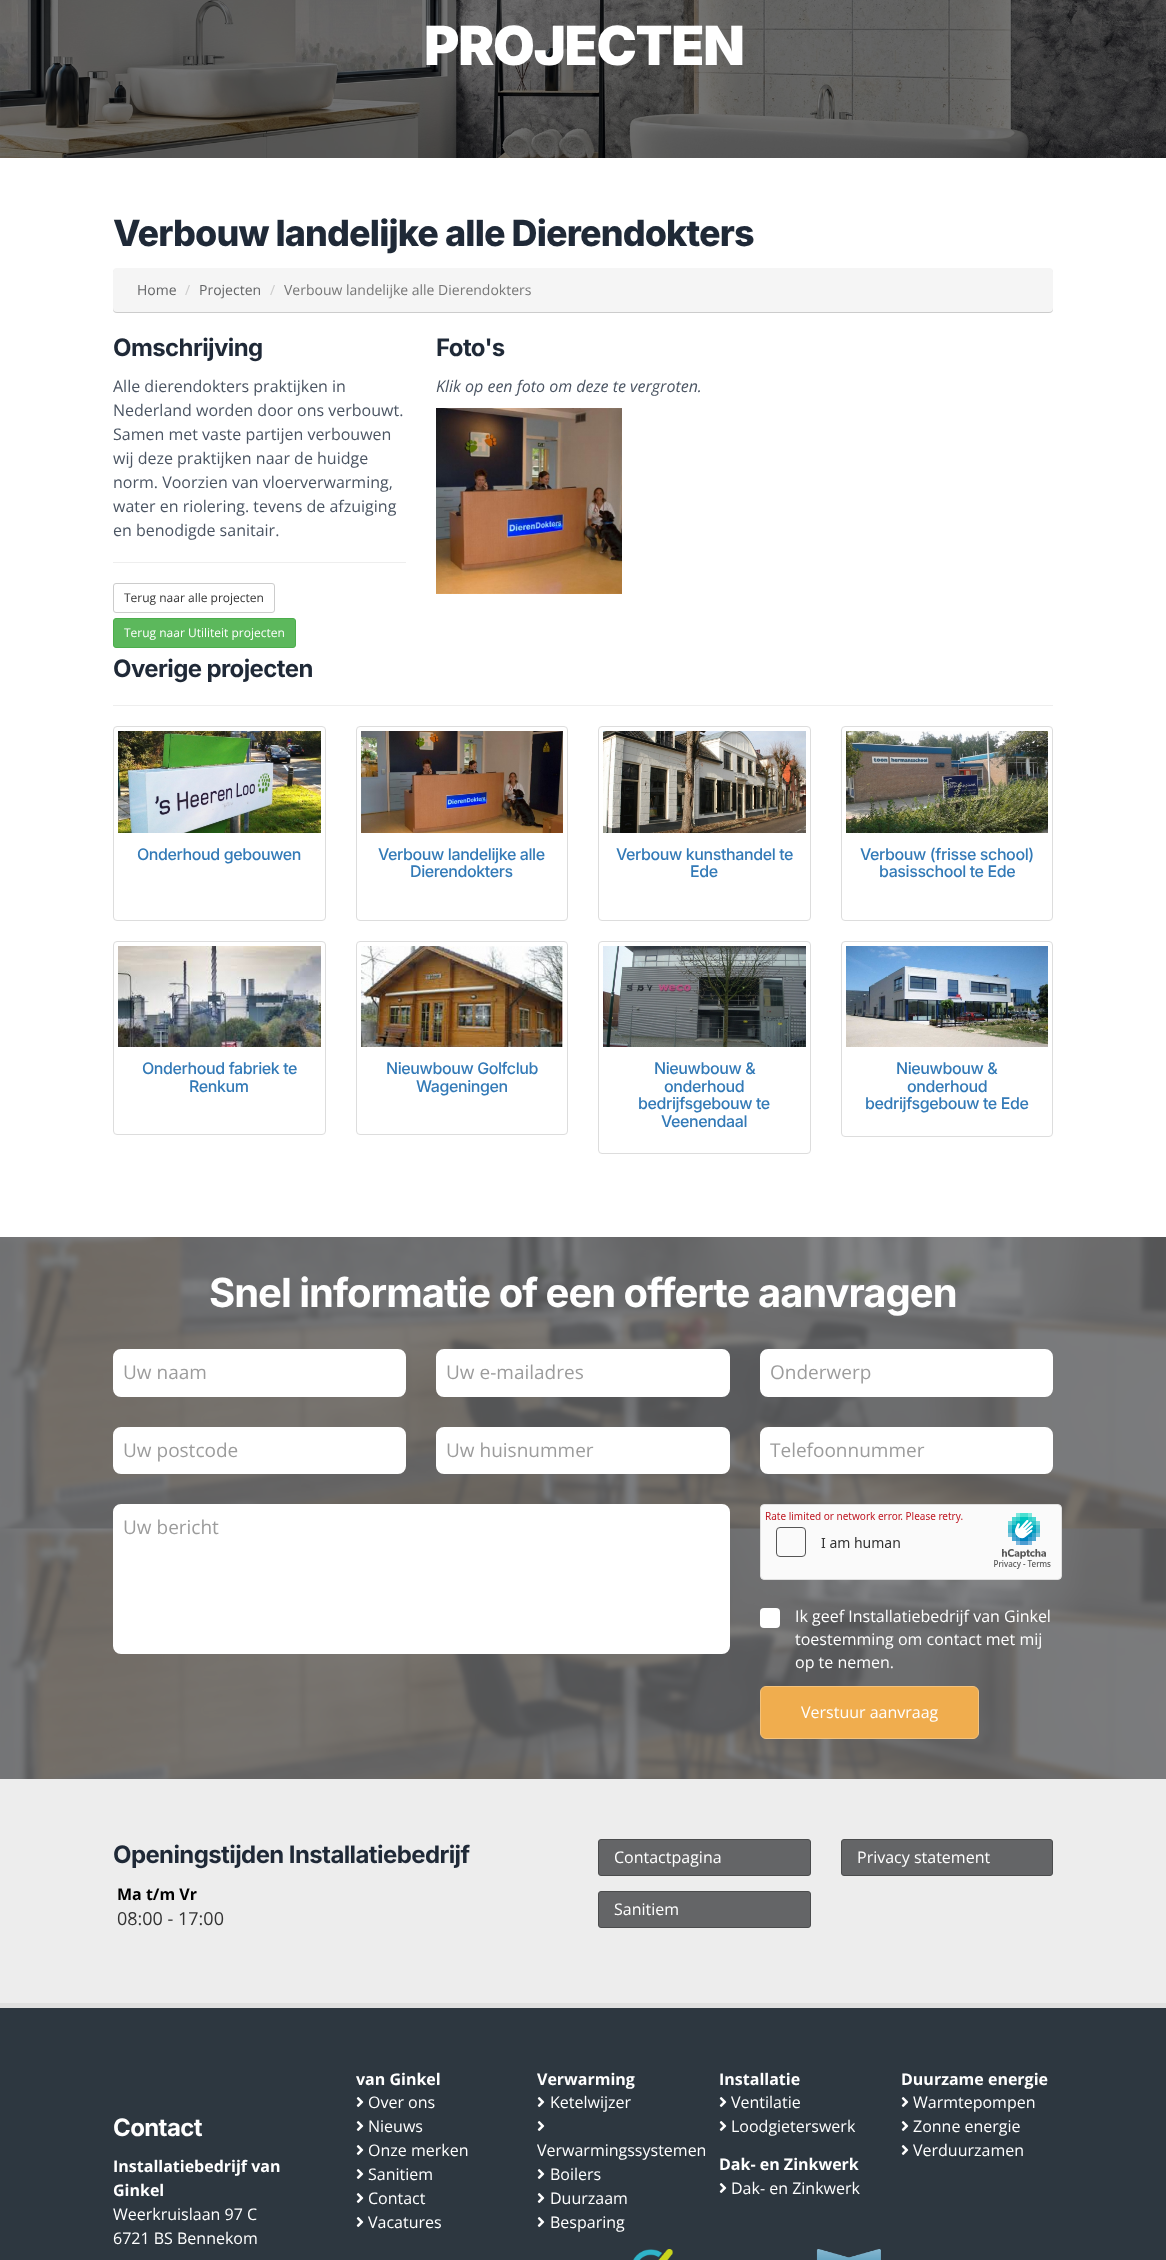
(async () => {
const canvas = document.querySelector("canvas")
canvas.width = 1166
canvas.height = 2260
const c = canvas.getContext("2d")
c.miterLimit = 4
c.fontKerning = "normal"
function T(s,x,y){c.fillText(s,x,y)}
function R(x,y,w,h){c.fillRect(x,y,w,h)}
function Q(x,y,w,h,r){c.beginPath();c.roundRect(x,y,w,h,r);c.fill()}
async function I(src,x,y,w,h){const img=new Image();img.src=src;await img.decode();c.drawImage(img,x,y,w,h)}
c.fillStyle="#fff"
R(0,0,1166,2260)
await I("1.png",0,0,1166,158)
c.letterSpacing="-1.25px"
c.font="900 54px Inter"
T("PROJECTEN",424,65)
c.letterSpacing="-0.9px"
c.font="800 36px Inter"
c.fillStyle="#1f2937"
T("Verbouw landelijke alle Dierendokters",113,246)
c.fillStyle="#00000033"
c.filter="blur(0.5px)"
c.beginPath()
c.roundRect(113,269,940,44,4)
c.fill()
c.filter="none"
c.fillStyle="#f5f5f5"
Q(113,268,940,44,4)
c.letterSpacing="0px"
c.font="14px Open Sans"
c.fillStyle="#646567"
T("Home",137,295)
c.fillStyle="#ccc"
T("/",185,295)
c.fillStyle="#646567"
T("Projecten",199,295)
c.fillStyle="#ccc"
T("/",270,295)
c.fillStyle="#777"
T("Verbouw landelijke alle Dierendokters",284,295)
c.letterSpacing="-0.6px"
c.font="bold 24px Inter"
c.fillStyle="#1f2937"
T("Omschrijving",113,356)
c.letterSpacing="0px"
c.font="16px Open Sans"
c.fillStyle="#4b5563"
T("Alle dierendokters praktijken in",113,392)
T("Nederland worden door ons verbouwt.",113,416)
T("Samen met vaste partijen verbouwen",113,440)
T("wij deze praktijken naar de huidge",113,464)
T("norm. Voorzien van vloerverwarming,",113,488)
T("water en riolering. tevens de afzuiging",113,512)
T("en benodigde sanitair.",113,536)
c.fillStyle="#eee"
R(113,562,293,1)
c.beginPath()
c.roundRect(113.5,583.5,161,29,2.5)
c.strokeStyle="#ccc"
c.stroke()
c.font="12px Open Sans"
c.fillStyle="#333"
T("Terug naar alle projecten",124,602)
c.fillStyle="#5cb85c"
c.beginPath()
c.roundRect(113.5,618.5,182,29,2.5)
c.fill()
c.strokeStyle="#4cae4c"
c.stroke()
c.fillStyle="#fff"
T("Terug naar Utiliteit projecten",124,637)
c.letterSpacing="-0.6px"
c.font="bold 24px Inter"
c.fillStyle="#1f2937"
T("Foto's",436,356)
c.letterSpacing="0px"
c.font="italic 16px Open Sans"
c.fillStyle="#4b5563"
T("Klik op een foto om deze te vergroten.",436,392)
await I("2.png",436,408,186,186)
c.letterSpacing="-0.6px"
c.font="bold 24px Inter"
c.fillStyle="#1f2937"
T("Overige projecten",113,677)
c.fillStyle="#eee"
R(113,705,940,1)
c.beginPath()
c.roundRect(113.5,726.5,212,194,3.5)
c.strokeStyle="#ddd"
c.stroke()
await I("3.png",118,731,203,102)
c.letterSpacing="-0.4px"
c.font="500 16px Inter"
c.fillStyle="#337ab7"
T("Onderhoud gebouwen",137,860)
c.beginPath()
c.roundRect(356.5,726.5,211,194,3.5)
c.stroke()
await I("4.png",361,731,202,102)
T("Verbouw landelijke alle",378,860)
T("Dierendokters",410,877)
c.beginPath()
c.roundRect(598.5,726.5,212,194,3.5)
c.stroke()
await I("5.png",603,731,203,102)
T("Verbouw kunsthandel te",616,860)
T("Ede",690,877)
c.beginPath()
c.roundRect(841.5,726.5,211,194,3.5)
c.stroke()
await I("6.png",846,731,202,102)
T("Verbouw (frisse school)",860,860)
T("basisschool te Ede",879,877)
c.beginPath()
c.roundRect(113.5,941.5,212,193,3.5)
c.stroke()
await I("7.png",118,946,203,101)
T("Onderhoud fabriek te",142,1074)
T("Renkum",189,1092)
c.beginPath()
c.roundRect(356.5,941.5,211,193,3.5)
c.stroke()
await I("8.png",361,946,202,101)
T("Nieuwbouw Golfclub",386,1074)
T("Wageningen",416,1092)
c.beginPath()
c.roundRect(598.5,941.5,212,212,3.5)
c.stroke()
await I("9.png",603,946,203,101)
T("Nieuwbouw &",654,1074)
T("onderhoud",664,1092)
T("bedrijfsgebouw te",638,1109)
T("Veenendaal",661,1127)
c.beginPath()
c.roundRect(841.5,941.5,211,195,3.5)
c.stroke()
await I("10.png",846,946,202,101)
T("Nieuwbouw &",896,1074)
T("onderhoud",907,1092)
T("bedrijfsgebouw te Ede",865,1109)
await I("11.png",0,1237,1166,542)
c.letterSpacing="-1px"
c.font="bold 40px Inter"
c.fillStyle="#fff"
T("Snel informatie of een offerte aanvragen",209,1307)
c.beginPath()
c.roundRect(114,1350,291,46,7)
c.fill()
c.strokeStyle="#fff"
c.lineWidth=2
c.stroke()
c.letterSpacing="0px"
c.font="19px Open Sans"
c.fillStyle="#9c9c9c"
T("Uw naam",123,1379)
c.fillStyle="#fff"
c.beginPath()
c.roundRect(437,1350,292,46,7)
c.fill()
c.stroke()
c.fillStyle="#9c9c9c"
T("Uw e-mailadres",446,1379)
c.fillStyle="#fff"
c.beginPath()
c.roundRect(761,1350,291,46,7)
c.fill()
c.stroke()
c.fillStyle="#9c9c9c"
T("Onderwerp",770,1379)
c.fillStyle="#fff"
c.beginPath()
c.roundRect(114,1428,291,45,7)
c.fill()
c.stroke()
c.fillStyle="#9c9c9c"
T("Uw postcode",123,1457)
c.fillStyle="#fff"
c.beginPath()
c.roundRect(437,1428,292,45,7)
c.fill()
c.stroke()
c.fillStyle="#9c9c9c"
T("Uw huisnummer",446,1457)
c.fillStyle="#fff"
c.beginPath()
c.roundRect(761,1428,291,45,7)
c.fill()
c.stroke()
c.fillStyle="#9c9c9c"
T("Telefoonnummer",770,1457)
c.fillStyle="#fff"
c.beginPath()
c.roundRect(114,1505,615,148,7)
c.fill()
c.stroke()
c.fillStyle="#9c9c9c"
T("Uw bericht",123,1534)
await I("12.png",760,1504,302,76)
c.fillStyle="#fff"
Q(760,1608,20,20,4)
c.font="16px Open Sans"
T("Ik geef Installatiebedrijf van Ginkel",795,1622)
T("toestemming om contact met mij",795,1645)
T("op te nemen.",795,1668)
c.fillStyle="#f0ad4e"
c.beginPath()
c.roundRect(760.5,1686.5,218,52,5.5)
c.fill()
c.strokeStyle="#f4c37d"
c.lineWidth=1
c.stroke()
c.fillStyle="#fff"
T("Verstuur aanvraag",801,1718)
c.fillStyle="#ededed"
R(0,1779,1166,224)
c.fillStyle="#e0e0e0"
R(0,2003,1166,5)
c.letterSpacing="-0.6px"
c.font="bold 24px Inter"
c.fillStyle="#1f2937"
T("Openingstijden Installatiebedrijf",113,1863)
c.letterSpacing="0px"
c.font="bold 16px Open Sans"
c.fillStyle="#000"
T("Ma t/m Vr",117,1900)
c.font="18px Open Sans"
c.fillStyle="#333"
T("08:00 - 17:00",117,1925)
c.fillStyle="#646567"
c.beginPath()
c.roundRect(598.5,1839.5,212,36,2.5)
c.fill()
c.strokeStyle="#4b4c4d"
c.stroke()
c.font="16px Open Sans"
c.fillStyle="#fff"
T("Contactpagina",614,1863)
c.fillStyle="#646567"
c.beginPath()
c.roundRect(598.5,1891.5,212,36,2.5)
c.fill()
c.stroke()
c.fillStyle="#fff"
T("Sanitiem",614,1915)
c.fillStyle="#646567"
c.beginPath()
c.roundRect(841.5,1839.5,211,36,2.5)
c.fill()
c.stroke()
c.fillStyle="#fff"
T("Privacy statement",857,1863)
c.fillStyle="#2d3740"
R(0,2008,1166,252)
c.letterSpacing="-0.6px"
c.font="bold 24px Inter"
c.fillStyle="#fff"
T("Contact",113,2136)
c.letterSpacing="0px"
c.font="bold 16px Open Sans"
T("Installatiebedrijf van",113,2172)
T("Ginkel",113,2196)
c.font="16px Open Sans"
T("Weerkruislaan 97 C",113,2220)
T("6721 BS Bennekom",113,2244)
c.font="bold 16px Open Sans"
T("van Ginkel",356,2085)
await I("13.png",356,2097,8,10)
c.font="16px Open Sans"
T("Over ons",368,2108)
await I("13.png",356,2121,8,10)
T("Nieuws",368,2132)
await I("13.png",356,2145,8,10)
T("Onze merken",368,2156)
await I("13.png",356,2169,8,10)
T("Sanitiem",368,2180)
await I("13.png",356,2193,8,10)
T("Contact",368,2204)
await I("13.png",356,2217,8,10)
T("Vacatures",368,2228)
c.font="bold 16px Open Sans"
T("Verwarming",537,2085)
await I("13.png",537,2097,8,10)
c.font="16px Open Sans"
T("Ketelwijzer",550,2108)
await I("13.png",537,2121,8,10)
T("Verwarmingssystemen",537,2156)
await I("13.png",537,2169,8,10)
T("Boilers",550,2180)
await I("13.png",537,2193,8,10)
T("Duurzaam",550,2204)
await I("13.png",537,2217,8,10)
T("Besparing",550,2228)
c.font="bold 16px Open Sans"
T("Installatie",719,2085)
await I("13.png",719,2097,8,10)
c.font="16px Open Sans"
T("Ventilatie",731,2108)
await I("13.png",719,2121,8,10)
T("Loodgieterswerk",731,2132)
c.font="bold 16px Open Sans"
T("Dak- en Zinkwerk",719,2170)
await I("13.png",719,2183,8,10)
c.font="16px Open Sans"
T("Dak- en Zinkwerk",731,2194)
c.font="bold 16px Open Sans"
T("Duurzame energie",901,2085)
await I("13.png",901,2097,8,10)
c.font="16px Open Sans"
T("Warmtepompen",913,2108)
await I("13.png",901,2121,8,10)
T("Zonne energie",913,2132)
await I("13.png",901,2145,8,10)
T("Verduurzamen",913,2156)
await I("14.png",633,2249,40,11)
await I("15.png",816,2249,65,11)
})()
